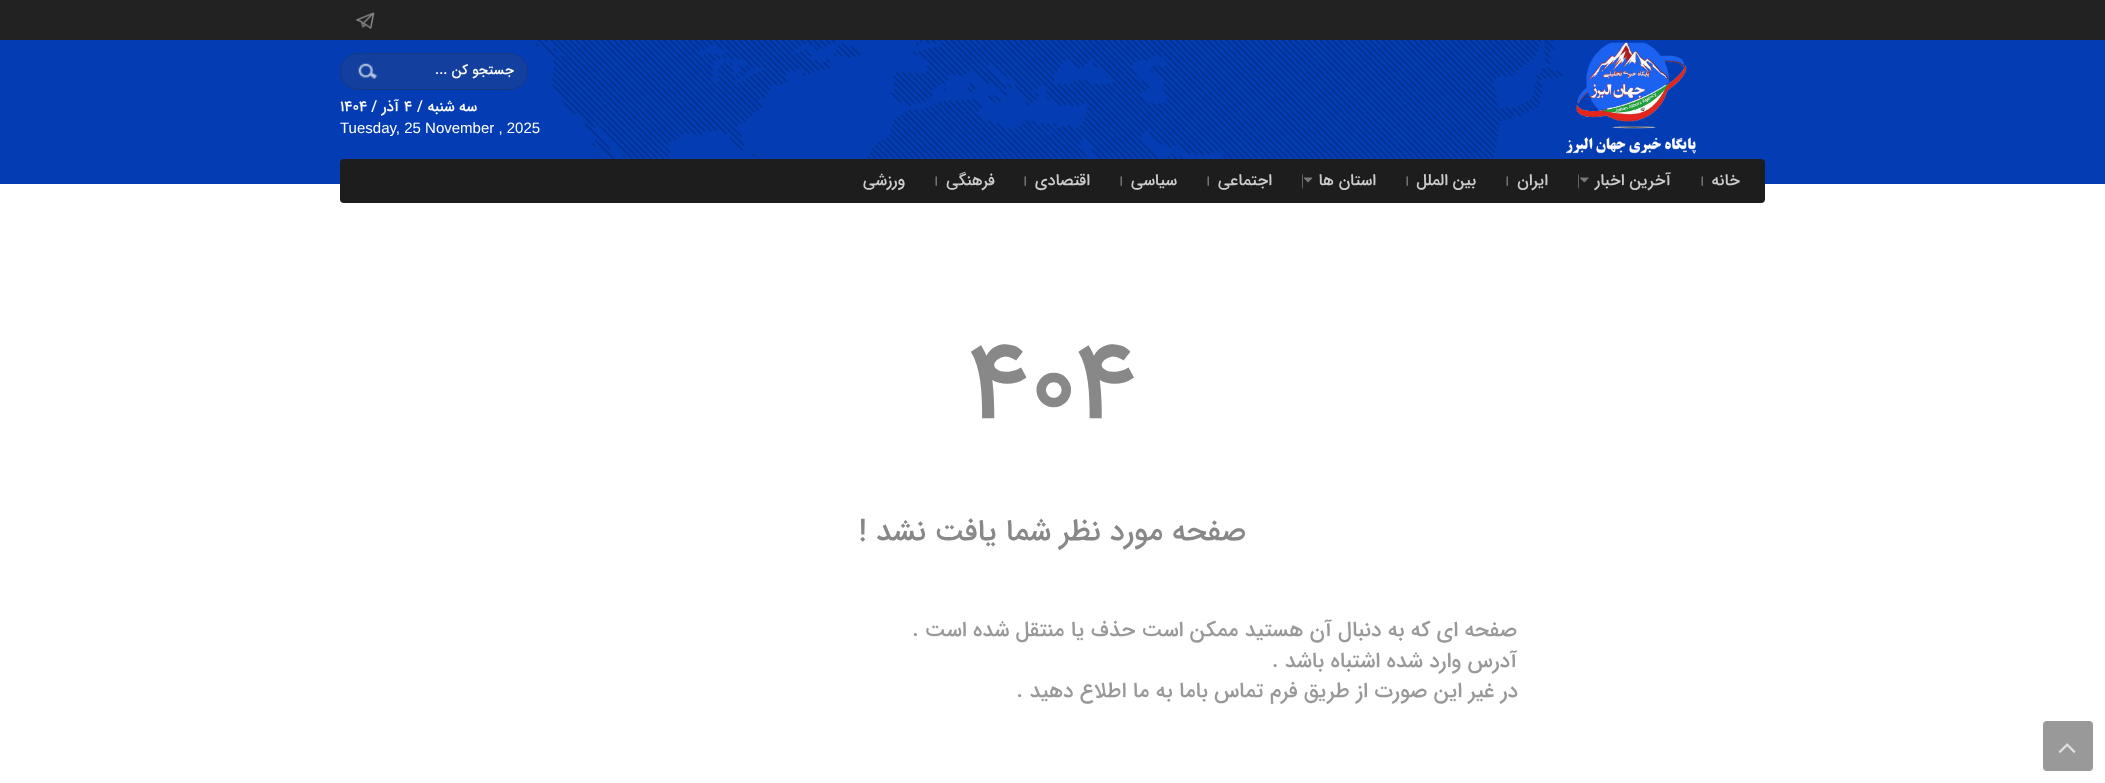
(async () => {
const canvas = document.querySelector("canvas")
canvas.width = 2105
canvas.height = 783
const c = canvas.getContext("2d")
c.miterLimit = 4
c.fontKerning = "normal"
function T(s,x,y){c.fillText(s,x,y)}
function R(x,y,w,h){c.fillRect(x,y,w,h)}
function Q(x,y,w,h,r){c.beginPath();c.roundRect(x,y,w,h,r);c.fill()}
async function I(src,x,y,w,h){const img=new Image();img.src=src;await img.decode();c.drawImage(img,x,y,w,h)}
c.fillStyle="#fff"
R(0,0,2105,783)
c.fillStyle="#222"
R(0,0,2105,40)
await I("1.png",355,12,20,17)
c.fillStyle="#043db3"
R(0,40,2105,144)
await I("2.png",535,40,1028,119)
await I("3.png",1566,42,130,112)
c.fillStyle="#13409e"
Q(340,53,188,37,18.5)
await I("4.png",358,63,20,16)
c.beginPath()
c.roundRect(340.5,53.5,187,36,18)
c.strokeStyle="#241b1b33"
c.stroke()
c.direction="rtl"
c.font="500 13.75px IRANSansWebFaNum"
c.fillStyle="#fff"
T("جستجو کن ...",514,74)
c.font="500 15px IRANSansWebFaNum"
T("سه شنبه /",477,111)
c.direction="ltr"
T("۴",404,111)
c.direction="rtl"
T("آذر /",399,111)
c.direction="ltr"
T("۱۴۰۴",340,111)
c.font="15px Liberation Sans"
T("Tuesday, 25 November , 2025",340,133)
c.fillStyle="#1d1d1d"
Q(340,159,1425,44,4)
c.direction="rtl"
c.font="500 16.25px IRANSansWebFaNum"
c.fillStyle="#ccc"
T("خانه",1740,185)
c.direction="ltr"
c.font="bold 15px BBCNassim"
c.fillStyle="#777"
T("|",1699,185)
c.direction="rtl"
c.font="500 16.25px IRANSansWebFaNum"
c.fillStyle="#ccc"
T("آخرین اخبار",1671,185)
await I("5.png",1580,177,9,6)
c.direction="ltr"
c.font="15px Liberation Serif"
c.fillStyle="#777"
T("|",1577,185)
c.direction="rtl"
c.font="500 16.25px IRANSansWebFaNum"
c.fillStyle="#ccc"
T("ایران",1548,185)
c.direction="ltr"
c.font="bold 15px BBCNassim"
c.fillStyle="#777"
T("|",1504,185)
c.direction="rtl"
c.font="500 16.25px IRANSansWebFaNum"
c.fillStyle="#ccc"
T("بین الملل",1476,185)
c.direction="ltr"
c.font="bold 15px BBCNassim"
c.fillStyle="#777"
T("|",1404,185)
c.direction="rtl"
c.font="500 16.25px IRANSansWebFaNum"
c.fillStyle="#ccc"
T("استان ها",1376,185)
await I("6.png",1303,177,10,6)
c.direction="ltr"
c.font="15px Liberation Serif"
c.fillStyle="#777"
T("|",1301,185)
c.direction="rtl"
c.font="500 16.25px IRANSansWebFaNum"
c.fillStyle="#ccc"
T("اجتماعی",1272,185)
c.direction="ltr"
c.font="bold 15px BBCNassim"
c.fillStyle="#777"
T("|",1205,185)
c.direction="rtl"
c.font="500 16.25px IRANSansWebFaNum"
c.fillStyle="#ccc"
T("سیاسی",1177,185)
c.direction="ltr"
c.font="bold 15px BBCNassim"
c.fillStyle="#777"
T("|",1118,185)
c.direction="rtl"
c.font="500 16.25px IRANSansWebFaNum"
c.fillStyle="#ccc"
T("اقتصادی",1090,185)
c.direction="ltr"
c.font="bold 15px BBCNassim"
c.fillStyle="#777"
T("|",1022,185)
c.direction="rtl"
c.font="500 16.25px IRANSansWebFaNum"
c.fillStyle="#ccc"
T("فرهنگی",995,185)
c.direction="ltr"
c.font="bold 15px BBCNassim"
c.fillStyle="#777"
T("|",933,185)
c.direction="rtl"
c.font="500 16.25px IRANSansWebFaNum"
c.fillStyle="#ccc"
T("ورزشی",905,185)
c.direction="ltr"
c.font="500 110px IRANSansWebFaNum"
c.fillStyle="#888"
T("404",969,416)
c.direction="rtl"
c.font="500 30px IRANSansWebFaNum"
T("صفحه مورد نظر شما یافت نشد !",1246,540)
c.font="500 21.25px IRANSansWebFaNum"
c.fillStyle="#999"
T("صفحه ای که به دنبال آن هستید ممکن است حذف یا منتقل شده است .",1517,636)
T("آدرس وارد شده اشتباه باشد .",1517,667)
T("در غیر این صورت از طریق فرم تماس باما به ما اطلاع دهید .",1518,697)
Q(2043,721,50,50,4)
await I("7.png",2058,743,18,10)
})()
